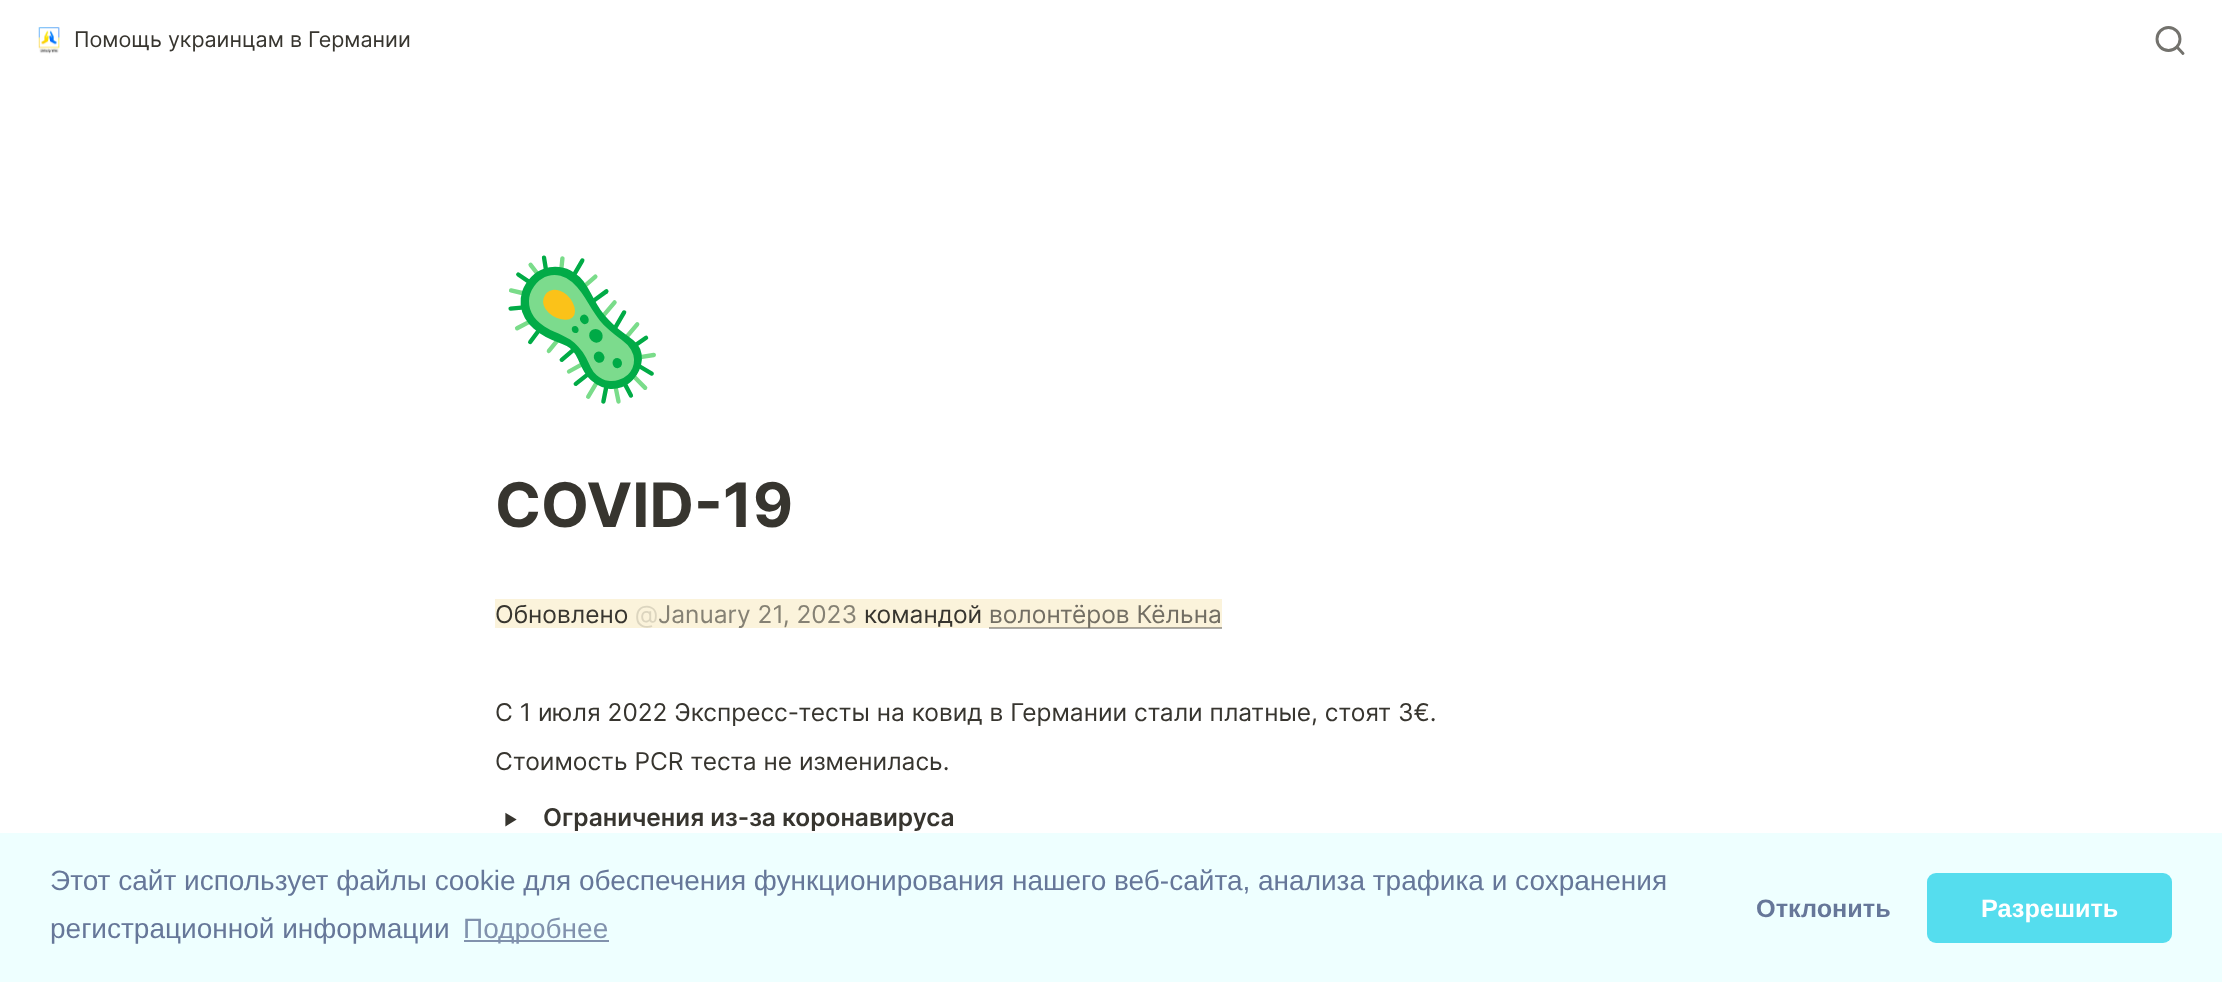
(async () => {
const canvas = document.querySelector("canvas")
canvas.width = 2222
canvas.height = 982
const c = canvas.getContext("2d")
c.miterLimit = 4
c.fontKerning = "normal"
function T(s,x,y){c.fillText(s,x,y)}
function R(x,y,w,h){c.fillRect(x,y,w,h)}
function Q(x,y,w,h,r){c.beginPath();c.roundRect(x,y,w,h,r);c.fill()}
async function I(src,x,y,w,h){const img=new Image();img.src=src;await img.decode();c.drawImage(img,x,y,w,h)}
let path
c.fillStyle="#fff"
R(0,0,2222,982)
c.fillStyle="#abaaa8"
R(989,628,233,1)
await I("1.png",38,27,22,27)
c.font="21.5px Inter"
c.fillStyle="#37352f"
T("Помощь украинцам в Германии",74,47)
c.beginPath()
c.arc(2168.5,39,11.5,0,7)
c.strokeStyle="#73726d"
c.lineWidth=2.9
c.stroke()
path = new Path2D("M2183 53.5l-6-6.5")
c.lineCap="round"
c.lineJoin="round"
c.stroke(path)
c.font="136px Noto Color Emoji"
T("🦠",497,376)
c.font="bold 61.25px Inter"
T("COVID-19",495,527)
c.fillStyle="#fbf3db"
R(495,599,494,29)
c.font="24.5px Inter"
c.fillStyle="#37352f"
T("Обновлено",495,623)
c.fillStyle="#dcd5bf"
T("@",635,623)
c.fillStyle="#858174"
T("January 21, 2023",658,623)
c.fillStyle="#37352f"
T("командой",864,623)
c.fillStyle="#fbf3db"
R(989,599,233,28)
c.fillStyle="#a9a393"
R(989,627,233,1)
c.fillStyle="#726e63"
T("волонтёров Кёльна",989,623)
c.fillStyle="#37352f"
T("С 1 июля 2022 Экспресс-тесты на ковид в Германии стали платные, стоят 3€.",495,721)
T("Стоимость PCR теста не изменилась.",495,770)
c.font="43px Inter"
T("‣",498,832)
c.font="600 24.5px Inter"
T("Ограничения из-за коронавируса",543,826)
c.fillStyle="#eff"
R(0,833,2222,149)
c.font="28px Liberation Sans"
c.fillStyle="#679"
T("Этот сайт использует файлы cookie для обеспечения функционирования нашего веб-сайта, анализа трафика и сохранения",50,890)
T("регистрационной информации",50,938)
c.fillStyle="#8192ad"
R(464,940,145,2)
T("Подробнее",463,938)
c.font="bold 25.25px Liberation Sans"
c.fillStyle="#679"
T("Отклонить",1756,917)
c.fillStyle="#5de"
Q(1927,873,245,70,9)
c.fillStyle="#fff"
T("Разрешить",1981,917)
})()
